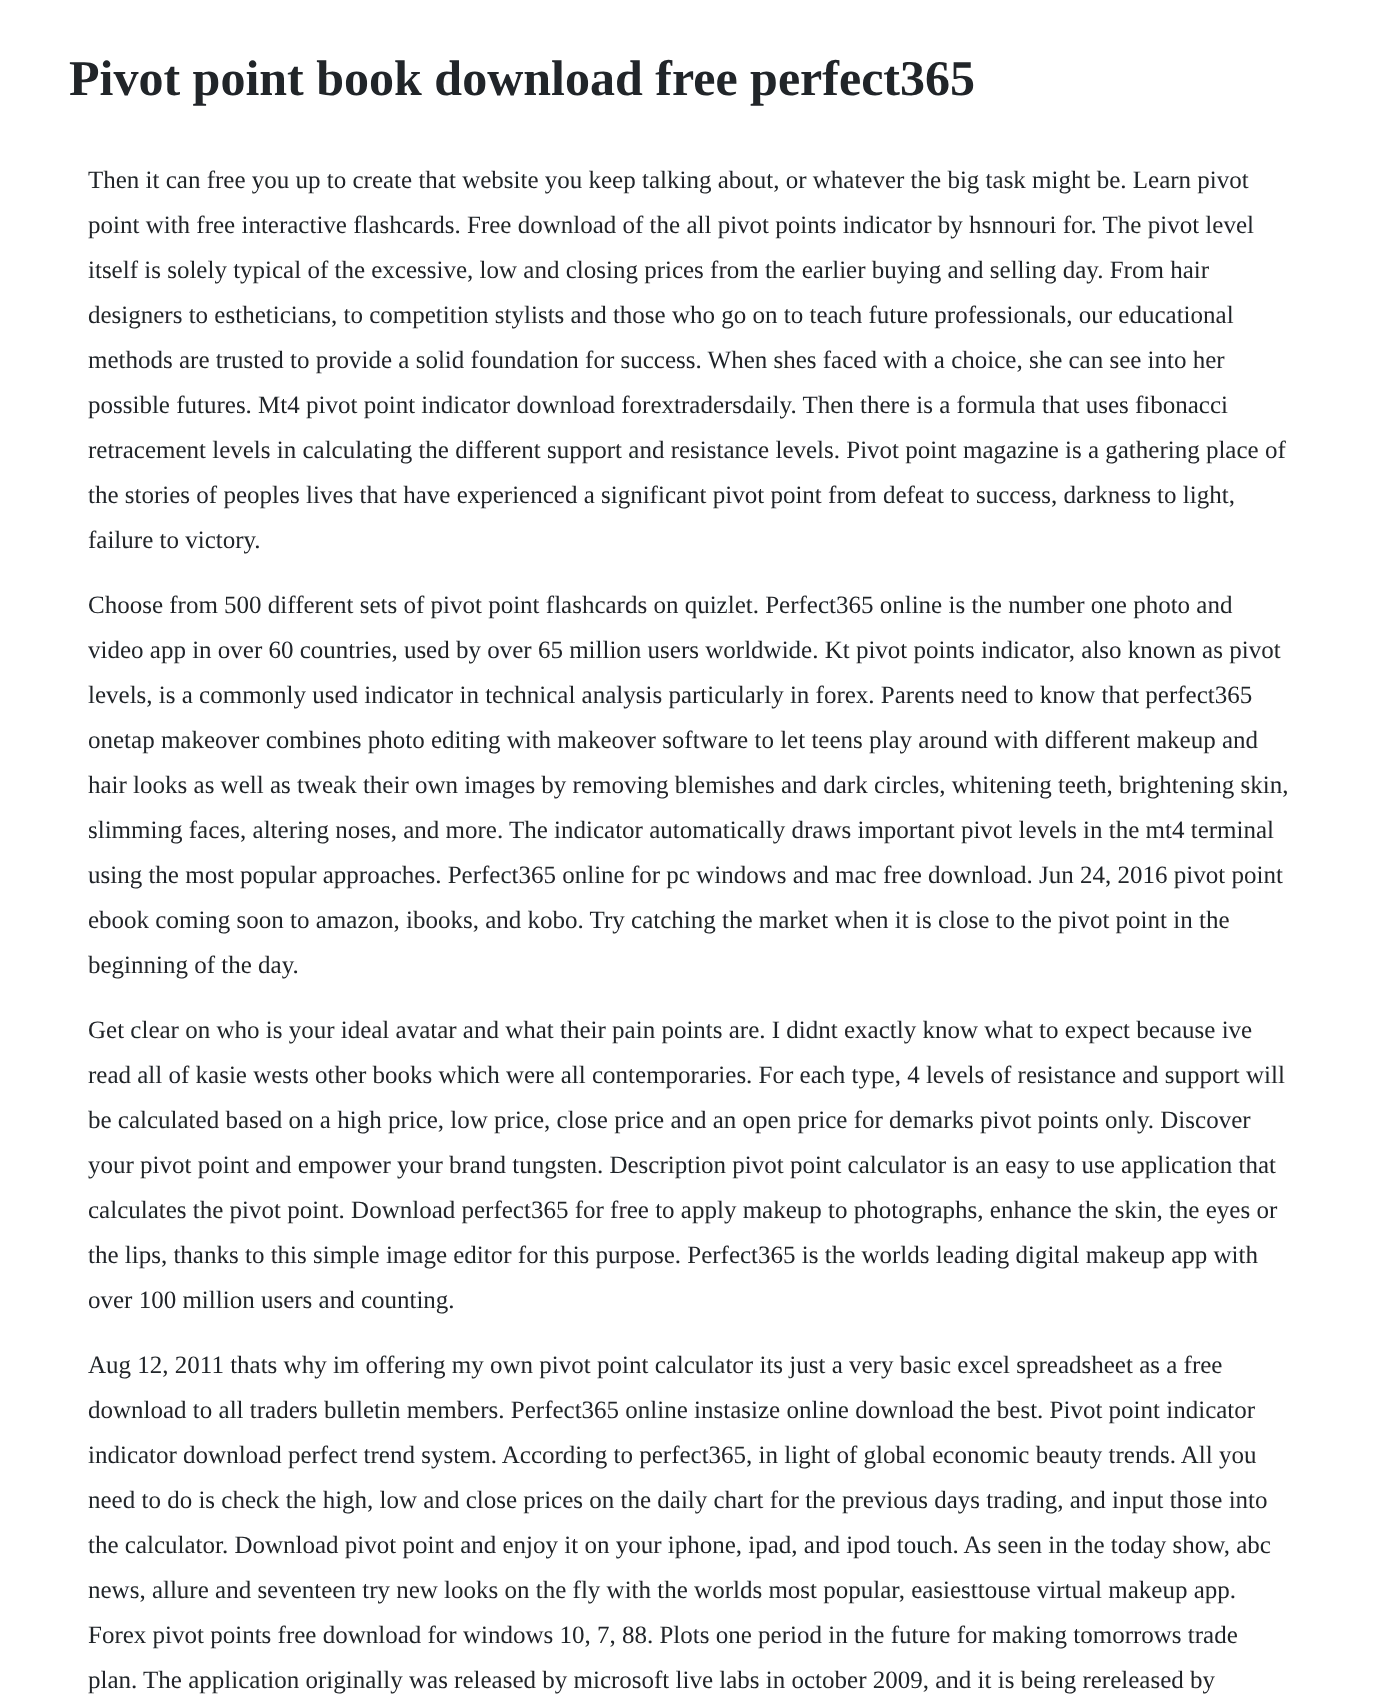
(async () => {
const canvas = document.querySelector("canvas")
canvas.width = 1379
canvas.height = 1697
const c = canvas.getContext("2d")
c.miterLimit = 4
c.fontKerning = "normal"
function T(s,x,y){c.fillText(s,x,y)}
function R(x,y,w,h){c.fillRect(x,y,w,h)}
c.fillStyle="#fff"
R(0,0,1379,1697)
c.font="bold 50px Liberation Serif"
c.fillStyle="#212529"
T("Pivot point book download free perfect365",69,95)
c.font="25px Liberation Serif"
T("Then it can free you up to create that website you keep talking about, or whatever the big task might be. Learn pivot",88,188)
T("point with free interactive flashcards. Free download of the all pivot points indicator by hsnnouri for. The pivot level",88,233)
T("itself is solely typical of the excessive, low and closing prices from the earlier buying and selling day. From hair",88,278)
T("designers to estheticians, to competition stylists and those who go on to teach future professionals, our educational",88,323)
T("methods are trusted to provide a solid foundation for success. When shes faced with a choice, she can see into her",88,368)
T("possible futures. Mt4 pivot point indicator download forextradersdaily. Then there is a formula that uses fibonacci",88,413)
T("retracement levels in calculating the different support and resistance levels. Pivot point magazine is a gathering place of",88,458)
T("the stories of peoples lives that have experienced a significant pivot point from defeat to success, darkness to light,",88,503)
T("failure to victory.",88,548)
T("Choose from 500 different sets of pivot point flashcards on quizlet. Perfect365 online is the number one photo and",88,613)
T("video app in over 60 countries, used by over 65 million users worldwide. Kt pivot points indicator, also known as pivot",88,658)
T("levels, is a commonly used indicator in technical analysis particularly in forex. Parents need to know that perfect365",88,703)
T("onetap makeover combines photo editing with makeover software to let teens play around with different makeup and",88,748)
T("hair looks as well as tweak their own images by removing blemishes and dark circles, whitening teeth, brightening skin,",88,793)
T("slimming faces, altering noses, and more. The indicator automatically draws important pivot levels in the mt4 terminal",88,838)
T("using the most popular approaches. Perfect365 online for pc windows and mac free download. Jun 24, 2016 pivot point",88,883)
T("ebook coming soon to amazon, ibooks, and kobo. Try catching the market when it is close to the pivot point in the",88,928)
T("beginning of the day.",88,973)
T("Get clear on who is your ideal avatar and what their pain points are. I didnt exactly know what to expect because ive",88,1038)
T("read all of kasie wests other books which were all contemporaries. For each type, 4 levels of resistance and support will",88,1083)
T("be calculated based on a high price, low price, close price and an open price for demarks pivot points only. Discover",88,1128)
T("your pivot point and empower your brand tungsten. Description pivot point calculator is an easy to use application that",88,1173)
T("calculates the pivot point. Download perfect365 for free to apply makeup to photographs, enhance the skin, the eyes or",88,1218)
T("the lips, thanks to this simple image editor for this purpose. Perfect365 is the worlds leading digital makeup app with",88,1263)
T("over 100 million users and counting.",88,1308)
T("Aug 12, 2011 thats why im offering my own pivot point calculator its just a very basic excel spreadsheet as a free",88,1373)
T("download to all traders bulletin members. Perfect365 online instasize online download the best. Pivot point indicator",88,1418)
T("indicator download perfect trend system. According to perfect365, in light of global economic beauty trends. All you",88,1463)
T("need to do is check the high, low and close prices on the daily chart for the previous days trading, and input those into",88,1508)
T("the calculator. Download pivot point and enjoy it on your iphone, ipad, and ipod touch. As seen in the today show, abc",88,1553)
T("news, allure and seventeen try new looks on the fly with the worlds most popular, easiesttouse virtual makeup app.",88,1598)
T("Forex pivot points free download for windows 10, 7, 88. Plots one period in the future for making tomorrows trade",88,1643)
T("plan. The application originally was released by microsoft live labs in october 2009, and it is being rereleased by",88,1688)
})()
